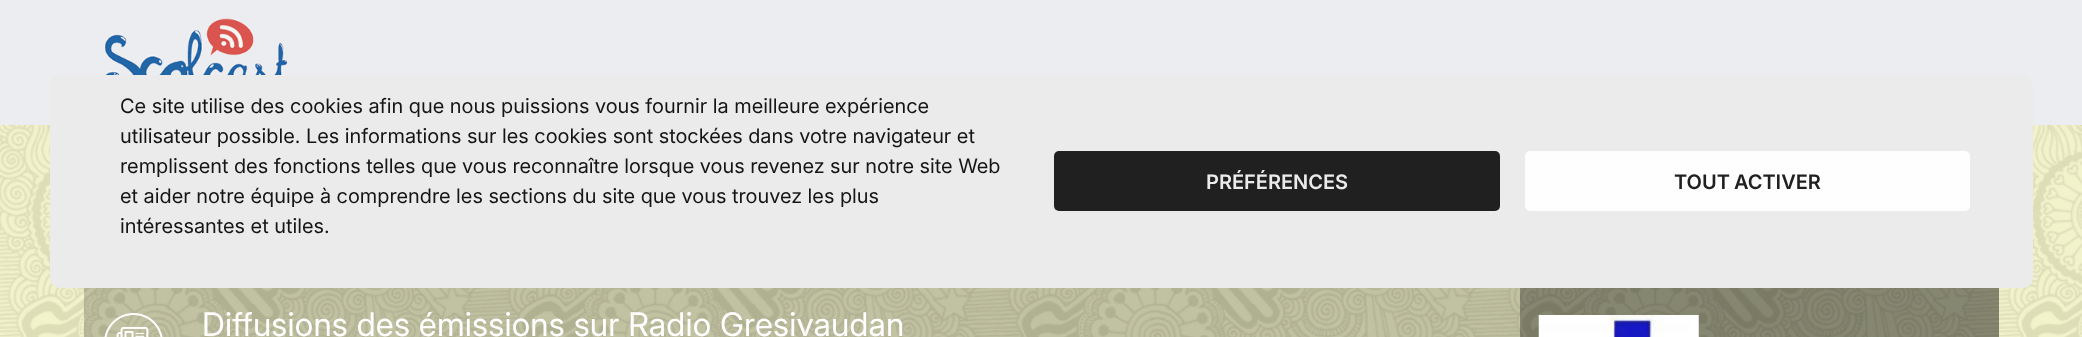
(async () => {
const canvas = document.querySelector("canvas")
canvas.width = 2082
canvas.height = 337
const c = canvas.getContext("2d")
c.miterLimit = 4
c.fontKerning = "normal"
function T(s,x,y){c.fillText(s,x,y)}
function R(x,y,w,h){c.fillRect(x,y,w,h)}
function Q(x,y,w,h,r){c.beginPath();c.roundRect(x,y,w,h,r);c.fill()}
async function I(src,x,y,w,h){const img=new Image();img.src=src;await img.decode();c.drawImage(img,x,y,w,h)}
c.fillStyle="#fff"
R(0,0,2082,337)
await I("1.png",0,125,2082,212)
c.fillStyle="#ecedf0"
R(0,0,2082,125)
c.fillStyle="#ebebeb"
Q(50,75,1983,213,10)
c.font="20px 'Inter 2'"
c.fillStyle="#151515"
T("Ce site utilise des cookies afin que nous puissions vous fournir la meilleure expérience",120,113)
T("utilisateur possible. Les informations sur les cookies sont stockées dans votre navigateur et",120,143)
T("remplissent des fonctions telles que vous reconnaître lorsque vous revenez sur notre site Web",120,173)
T("et aider notre équipe à comprendre les sections du site que vous trouvez les plus",120,203)
T("intéressantes et utiles.",120,233)
c.fillStyle="#202020"
Q(1054,151,446,60,5)
c.font="600 20px Inter"
c.fillStyle="#ebebeb"
T("PRÉFÉRENCES",1206,189)
c.fillStyle="#fefefe"
Q(1525,151,445,60,5)
c.wordSpacing="-1px"
c.fillStyle="#202020"
T("TOUT ACTIVER",1674,189)
await I("2.png",102,18,188,57)
c.fillStyle="#00000033"
R(84,288,1915,49)
await I("3.png",104,313,59,24)
c.letterSpacing="0.2px"
c.wordSpacing="0px"
c.font="32.5px Inter"
c.fillStyle="#fff"
T("Diffusions des émissions sur Radio Gresivaudan",202,336)
c.fillStyle="#0000004d"
R(1520,288,479,49)
await I("4.png",1538,315,161,22)
})()
